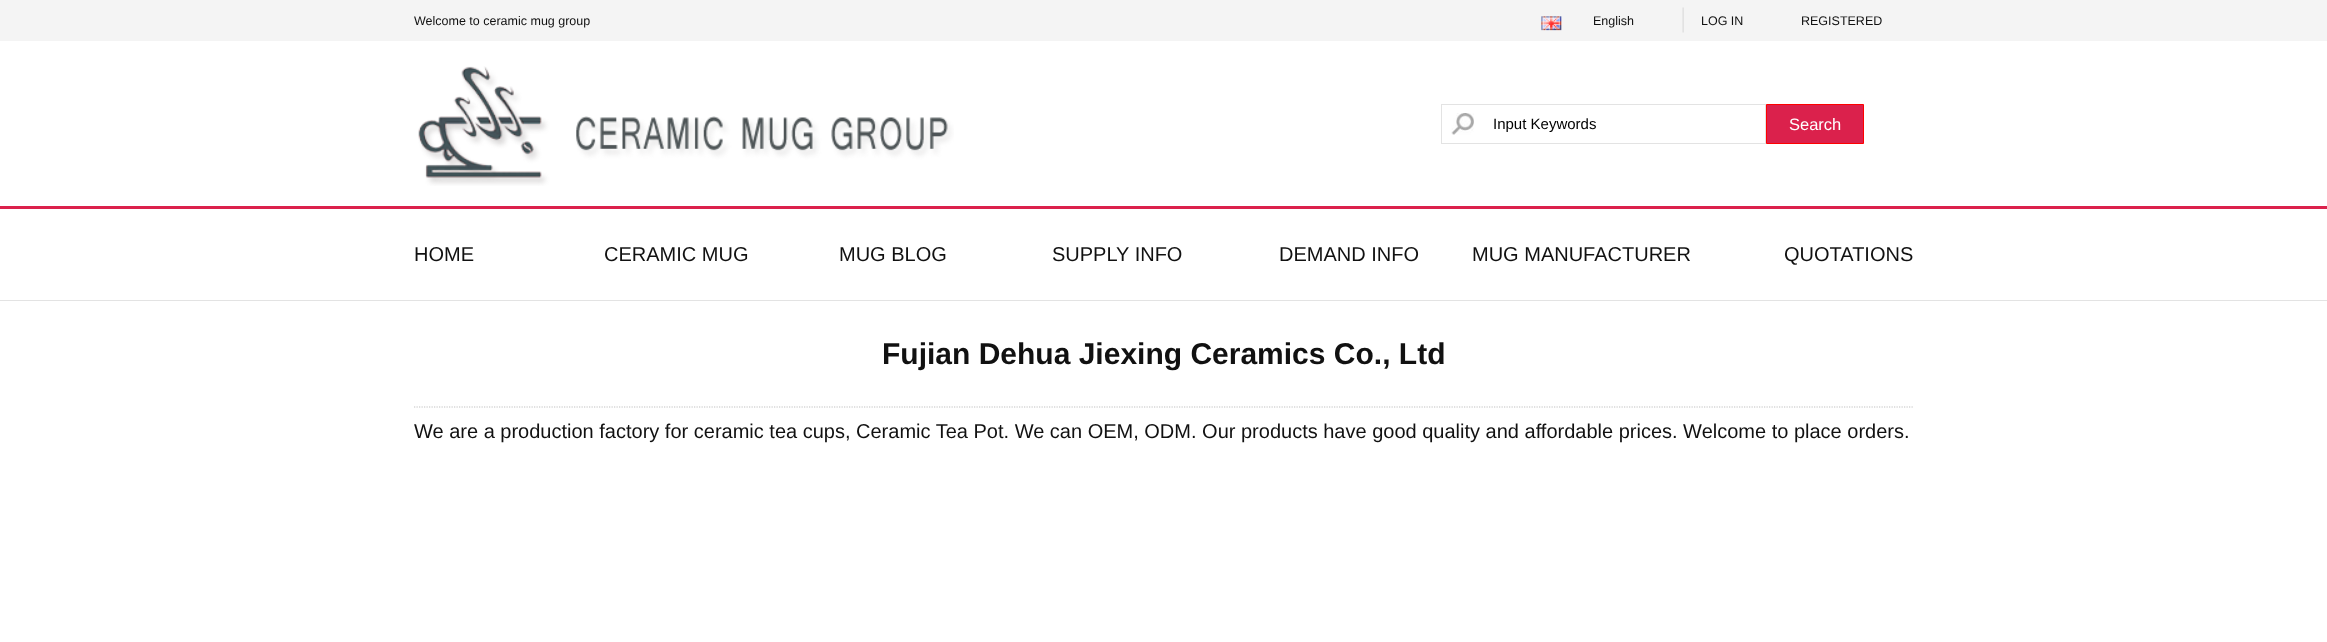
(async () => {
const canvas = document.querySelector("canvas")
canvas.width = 2327
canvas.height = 642
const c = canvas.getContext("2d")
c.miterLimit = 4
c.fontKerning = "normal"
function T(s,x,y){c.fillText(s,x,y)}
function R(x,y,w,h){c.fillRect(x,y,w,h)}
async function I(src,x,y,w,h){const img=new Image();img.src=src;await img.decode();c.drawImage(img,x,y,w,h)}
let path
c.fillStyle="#fff"
R(0,0,2327,642)
c.fillStyle="#f4f4f4"
R(0,0,2327,41)
c.font="12.5px Liberation Sans"
c.fillStyle="#111"
T("Welcome to ceramic mug group",414,25)
await I("1.png",1541,16,21,15)
T("English",1593,25)
await I("2.png",1682,7,2,26)
T("LOG IN",1701,25)
T("REGISTERED",1801,25)
await I("3.png",418,66,536,120)
await I("4.png",1451,113,23,22)
c.strokeStyle="#e3e3e3"
c.strokeRect(1441.5,104.5,324,39)
c.font="15px Liberation Sans"
c.fillStyle="#000"
T("Input Keywords",1493,129)
c.fillStyle="#db214c"
c.beginPath()
c.rect(1766.5,104.5,97,39)
c.fill()
c.strokeStyle="#f00"
c.stroke()
c.font="16.5px Liberation Sans"
c.fillStyle="#fff"
T("Search",1789,130)
c.fillStyle="#db214c"
R(0,206,2327,3)
c.font="20px Liberation Sans"
c.fillStyle="#111"
T("HOME",414,261)
T("CERAMIC MUG",604,261)
T("MUG BLOG",839,261)
T("SUPPLY INFO",1052,261)
T("DEMAND INFO",1279,261)
T("MUG MANUFACTURER",1472,261)
T("QUOTATIONS",1784,261)
c.fillStyle="#e3e3e3"
R(0,300,2327,1)
path = new Path2D("M414 407h1500")
c.strokeStyle="#c1c1c1"
c.lineWidth=1.2
c.setLineDash([1.25,1.25])
c.stroke(path)
c.font="bold 30px Liberation Sans"
c.fillStyle="#111"
T("Fujian Dehua Jiexing Ceramics Co., Ltd",882,364)
c.font="20px Liberation Sans"
T("We are a production factory for ceramic tea cups, Ceramic Tea Pot. We can OEM, ODM. Our products have good quality and affordable prices. Welcome to place orders.",414,438)
})()
